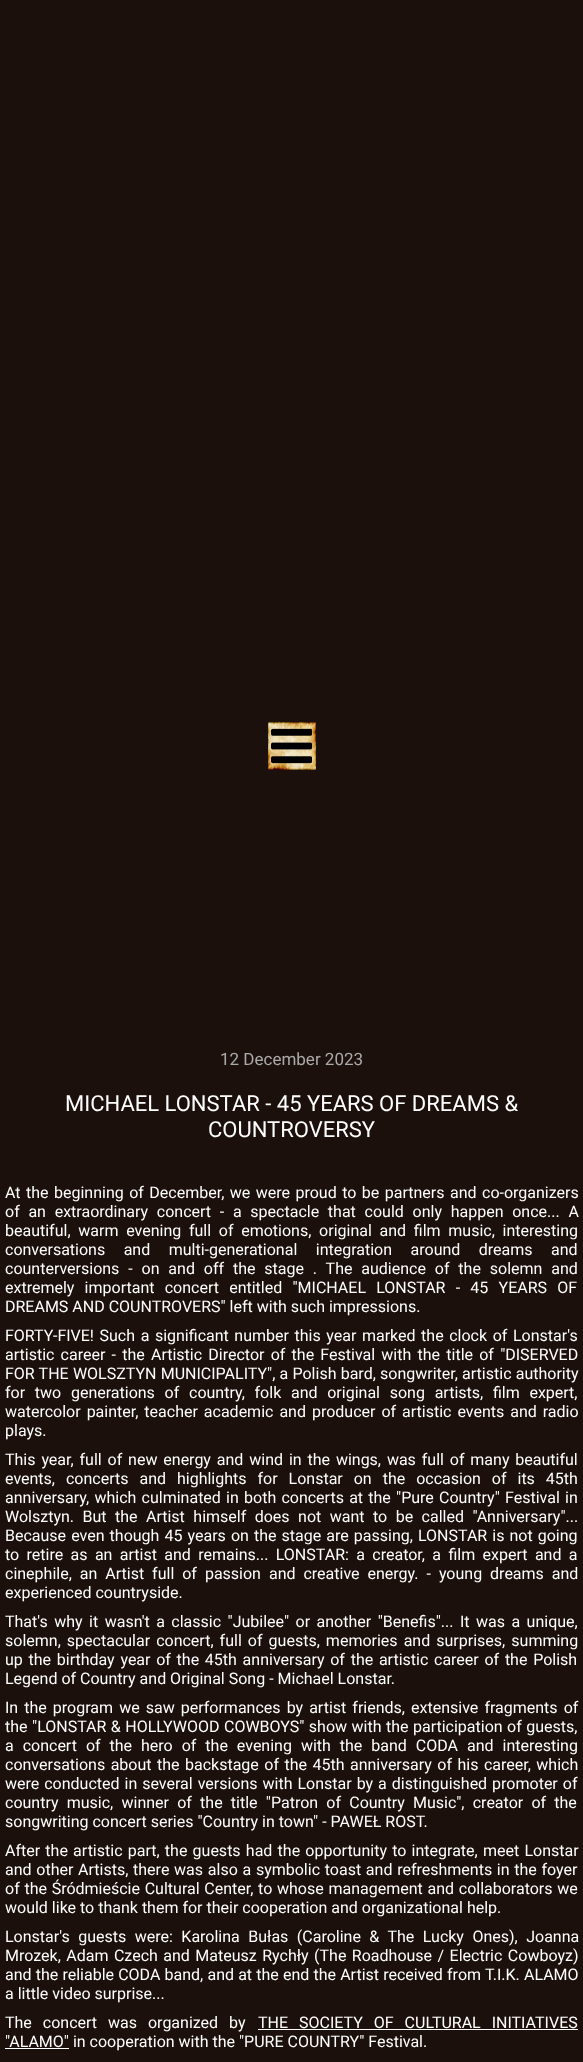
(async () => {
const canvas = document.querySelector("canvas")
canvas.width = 583
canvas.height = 2062
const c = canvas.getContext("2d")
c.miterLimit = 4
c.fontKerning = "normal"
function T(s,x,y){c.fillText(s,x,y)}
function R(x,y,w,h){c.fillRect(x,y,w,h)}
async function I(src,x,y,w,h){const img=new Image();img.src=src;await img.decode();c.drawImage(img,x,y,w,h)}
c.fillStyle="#1b100c"
R(0,0,583,2062)
await I("1.png",268,722,48,48)
await I("2.png",271,728,41,36)
c.font="17px Roboto"
c.fillStyle="#aaa"
T("12 December 2023",220,1065)
c.font="22px Roboto"
c.fillStyle="#fff"
T("MICHAEL LONSTAR - 45 YEARS OF DREAMS &",65,1111)
T("COUNTROVERSY",208,1137)
c.wordSpacing="1.5px"
c.font="16px Roboto"
T("At the beginning of December, we were proud to be partners and co-organizers",5,1198)
c.wordSpacing="4.75px"
T("of an extraordinary concert - a spectacle that could only happen once... A",5,1217)
c.wordSpacing="3.75px"
T("beautiful, warm evening full of emotions, original and film music, interesting",5,1236)
c.wordSpacing="14.5px"
T("conversations and multi-generational integration around dreams and",5,1255)
c.wordSpacing="4.9px"
T("counterversions - on and off the stage . The audience of the solemn and",5,1274)
c.wordSpacing="6.25px"
T("extremely important concert entitled \"MICHAEL LONSTAR - 45 YEARS OF",5,1293)
c.wordSpacing="0px"
T("DREAMS AND COUNTROVERS\" left with such impressions.",5,1312)
c.wordSpacing="1.6px"
T("FORTY-FIVE! Such a significant number this year marked the clock of Lonstar's",5,1341)
c.wordSpacing="2.25px"
T("artistic career - the Artistic Director of the Festival with the title of \"DISERVED",5,1360)
c.wordSpacing="0.25px"
T("FOR THE WOLSZTYN MUNICIPALITY\", a Polish bard, songwriter, artistic authority",5,1379)
c.wordSpacing="5.75px"
T("for two generations of country, folk and original song artists, film expert,",5,1398)
c.wordSpacing="2px"
T("watercolor painter, teacher academic and producer of artistic events and radio",5,1417)
c.wordSpacing="0px"
T("plays.",5,1436)
c.wordSpacing="1.9px"
T("This year, full of new energy and wind in the wings, was full of many beautiful",5,1465)
c.wordSpacing="7px"
T("events, concerts and highlights for Lonstar on the occasion of its 45th",5,1484)
c.wordSpacing="1.25px"
T("anniversary, which culminated in both concerts at the \"Pure Country\" Festival in",5,1503)
c.wordSpacing="4.5px"
T("Wolsztyn. But the Artist himself does not want to be called \"Anniversary\"...",5,1522)
c.wordSpacing="1.1px"
T("Because even though 45 years on the stage are passing, LONSTAR is not going",5,1541)
c.wordSpacing="3.4px"
T("to retire as an artist and remains... LONSTAR: a creator, a film expert and a",5,1560)
c.wordSpacing="4px"
T("cinephile, an Artist full of passion and creative energy. - young dreams and",5,1579)
c.wordSpacing="0px"
T("experienced countryside.",5,1598)
c.wordSpacing="2.5px"
T("That's why it wasn't a classic \"Jubilee\" or another \"Benefis\"... It was a unique,",5,1627)
c.wordSpacing="2.1px"
T("solemn, spectacular concert, full of guests, memories and surprises, summing",5,1646)
c.wordSpacing="1.75px"
T("up the birthday year of the 45th anniversary of the artistic career of the Polish",5,1665)
c.wordSpacing="0px"
T("Legend of Country and Original Song - Michael Lonstar.",5,1684)
c.wordSpacing="2.1px"
T("In the program we saw performances by artist friends, extensive fragments of",5,1713)
c.wordSpacing="0.5px"
T("the \"LONSTAR & HOLLYWOOD COWBOYS\" show with the participation of guests,",5,1732)
c.wordSpacing="5px"
T("a concert of the hero of the evening with the band CODA and interesting",5,1751)
c.wordSpacing="1.5px"
T("conversations about the backstage of the 45th anniversary of his career, which",5,1770)
c.wordSpacing="1px"
T("were conducted in several versions with Lonstar by a distinguished promoter of",5,1789)
c.wordSpacing="4.25px"
T("country music, winner of the title \"Patron of Country Music\", creator of the",5,1808)
c.wordSpacing="0px"
T("songwriting concert series \"Country in town\" - PAWEŁ ROST.",5,1827)
c.wordSpacing="1.25px"
T("After the artistic part, the guests had the opportunity to integrate, meet Lonstar",5,1856)
c.wordSpacing="0.75px"
T("and other Artists, there was also a symbolic toast and refreshments in the foyer",5,1875)
T("of the Śródmieście Cultural Center, to whose management and collaborators we",5,1894)
c.wordSpacing="0px"
T("would like to thank them for their cooperation and organizational help.",5,1913)
c.wordSpacing="4.5px"
T("Lonstar's guests were: Karolina Bułas (Caroline & The Lucky Ones), Joanna",5,1942)
c.wordSpacing="1.5px"
T("Mrozek, Adam Czech and Mateusz Rychły (The Roadhouse / Electric Cowboyz)",5,1961)
c.wordSpacing="0.2px"
T("and the reliable CODA band, and at the end the Artist received from T.I.K. ALAMO",5,1980)
c.wordSpacing="0px"
T("a little video surprise...",5,1999)
c.wordSpacing="7px"
T("The concert was organized by",5,2028)
T("THE SOCIETY OF CULTURAL INITIATIVES",258,2028)
R(258,2029,320,1)
R(5,2048,64,1)
c.wordSpacing="0px"
T("\"ALAMO\" in cooperation with the \"PURE COUNTRY\" Festival.",5,2047)
})()
